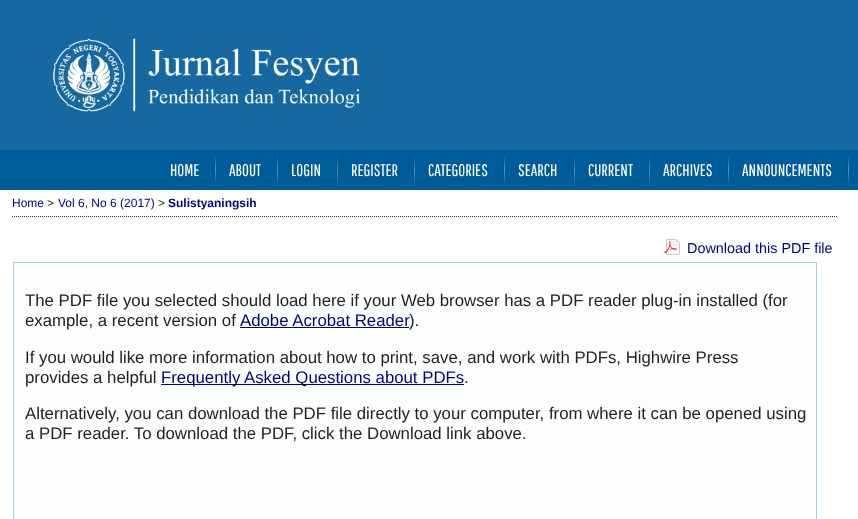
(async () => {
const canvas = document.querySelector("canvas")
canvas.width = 858
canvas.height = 519
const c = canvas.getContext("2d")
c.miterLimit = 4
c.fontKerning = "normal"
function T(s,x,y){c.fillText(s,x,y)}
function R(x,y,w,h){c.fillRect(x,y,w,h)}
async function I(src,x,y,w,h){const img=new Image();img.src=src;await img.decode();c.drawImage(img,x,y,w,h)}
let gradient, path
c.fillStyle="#fff"
R(0,0,858,519)
await I("1.png",0,0,858,150)
c.fillStyle="#bbb"
c.filter="blur(3px)"
c.beginPath()
c.rect(0,155,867,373)
c.fill()
c.filter="none"
c.fillStyle="#fff"
R(0,190,858,329)
c.fillStyle="#005c99"
R(0,150,858,40)
c.font="16.8px Pathway Gothic One"
c.fillStyle="#fff"
T("HOME",170,176)
gradient = c.createLinearGradient(215,155,215,185)
gradient.addColorStop(0,"#005c99")
gradient.addColorStop(.5,"#004e82")
gradient.addColorStop(1,"#005c99")
c.fillStyle = gradient
R(214,155,1,30)
gradient = c.createLinearGradient(216,155,216,185)
gradient.addColorStop(0,"#005c99")
gradient.addColorStop(.5,"#5995bd")
gradient.addColorStop(1,"#005c99")
c.fillStyle = gradient
R(215,155,1,30)
c.fillStyle="#fff"
T("ABOUT",229,176)
gradient = c.createLinearGradient(277,155,277,185)
gradient.addColorStop(0,"#005c99")
gradient.addColorStop(.5,"#004e82")
gradient.addColorStop(1,"#005c99")
c.fillStyle = gradient
R(276,155,1,30)
gradient = c.createLinearGradient(278,155,278,185)
gradient.addColorStop(0,"#005c99")
gradient.addColorStop(.5,"#5995bd")
gradient.addColorStop(1,"#005c99")
c.fillStyle = gradient
R(277,155,1,30)
c.fillStyle="#fff"
T("LOGIN",291,176)
gradient = c.createLinearGradient(337,155,337,185)
gradient.addColorStop(0,"#005c99")
gradient.addColorStop(.5,"#004e82")
gradient.addColorStop(1,"#005c99")
c.fillStyle = gradient
R(336,155,1,30)
gradient = c.createLinearGradient(338,155,338,185)
gradient.addColorStop(0,"#005c99")
gradient.addColorStop(.5,"#5995bd")
gradient.addColorStop(1,"#005c99")
c.fillStyle = gradient
R(337,155,1,30)
c.fillStyle="#fff"
T("REGISTER",351,176)
gradient = c.createLinearGradient(414,155,414,185)
gradient.addColorStop(0,"#005c99")
gradient.addColorStop(.5,"#004e82")
gradient.addColorStop(1,"#005c99")
c.fillStyle = gradient
R(413,155,1,30)
gradient = c.createLinearGradient(415,155,415,185)
gradient.addColorStop(0,"#005c99")
gradient.addColorStop(.5,"#5995bd")
gradient.addColorStop(1,"#005c99")
c.fillStyle = gradient
R(414,155,1,30)
c.fillStyle="#fff"
T("CATEGORIES",428,176)
gradient = c.createLinearGradient(504,155,504,185)
gradient.addColorStop(0,"#005c99")
gradient.addColorStop(.5,"#004e82")
gradient.addColorStop(1,"#005c99")
c.fillStyle = gradient
R(503,155,1,30)
gradient = c.createLinearGradient(505,155,505,185)
gradient.addColorStop(0,"#005c99")
gradient.addColorStop(.5,"#5995bd")
gradient.addColorStop(1,"#005c99")
c.fillStyle = gradient
R(504,155,1,30)
c.fillStyle="#fff"
T("SEARCH",518,176)
gradient = c.createLinearGradient(574,155,574,185)
gradient.addColorStop(0,"#005c99")
gradient.addColorStop(.5,"#004e82")
gradient.addColorStop(1,"#005c99")
c.fillStyle = gradient
R(573,155,1,30)
gradient = c.createLinearGradient(575,155,575,185)
gradient.addColorStop(0,"#005c99")
gradient.addColorStop(.5,"#5995bd")
gradient.addColorStop(1,"#005c99")
c.fillStyle = gradient
R(574,155,1,30)
c.fillStyle="#fff"
T("CURRENT",588,176)
gradient = c.createLinearGradient(649,155,649,185)
gradient.addColorStop(0,"#005c99")
gradient.addColorStop(.5,"#004e82")
gradient.addColorStop(1,"#005c99")
c.fillStyle = gradient
R(648,155,1,30)
gradient = c.createLinearGradient(650,155,650,185)
gradient.addColorStop(0,"#005c99")
gradient.addColorStop(.5,"#5995bd")
gradient.addColorStop(1,"#005c99")
c.fillStyle = gradient
R(649,155,1,30)
c.fillStyle="#fff"
T("ARCHIVES",663,176)
gradient = c.createLinearGradient(728,155,728,185)
gradient.addColorStop(0,"#005c99")
gradient.addColorStop(.5,"#004e82")
gradient.addColorStop(1,"#005c99")
c.fillStyle = gradient
R(727,155,1,30)
gradient = c.createLinearGradient(729,155,729,185)
gradient.addColorStop(0,"#005c99")
gradient.addColorStop(.5,"#5995bd")
gradient.addColorStop(1,"#005c99")
c.fillStyle = gradient
R(728,155,1,30)
c.fillStyle="#fff"
T("ANNOUNCEMENTS",742,176)
gradient = c.createLinearGradient(848,155,848,185)
gradient.addColorStop(0,"#005c99")
gradient.addColorStop(.5,"#004e82")
gradient.addColorStop(1,"#005c99")
c.fillStyle = gradient
R(847,155,1,30)
gradient = c.createLinearGradient(849,155,849,185)
gradient.addColorStop(0,"#005c99")
gradient.addColorStop(.5,"#5995bd")
gradient.addColorStop(1,"#005c99")
c.fillStyle = gradient
R(848,155,1,30)
path = new Path2D("M12 216.5h826")
c.strokeStyle="#333"
c.setLineDash([1,1])
c.stroke(path)
c.font="12px Liberation Sans"
c.fillStyle="#000080"
T("Home",12,207)
c.fillStyle="#222"
T(">",47,207)
c.fillStyle="#000080"
T("Vol 6, No 6 (2017)",58,207)
c.fillStyle="#222"
T(">",158,207)
c.font="bold 12px Liberation Sans"
c.fillStyle="#000080"
T("Sulistyaningsih",168,207)
await I("2.png",664,239,16,16)
c.font="14.4px Liberation Sans"
T("Download this PDF file",687,253)
c.fillStyle="#fcfdfd"
c.beginPath()
c.rect(13.5,262.5,803,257)
c.fill()
c.strokeStyle="#a6c9e2"
c.setLineDash([])
c.stroke()
c.font="16.8px Liberation Sans"
c.fillStyle="#222"
T("The PDF file you selected should load here if your Web browser has a PDF reader plug-in installed (for",25,306)
T("example, a recent version of",25,326)
c.fillStyle="#000080"
T("Adobe Acrobat Reader",240,326)
R(240,327,169,1)
c.fillStyle="#222"
T(").",409,326)
T("If you would like more information about how to print, save, and work with PDFs, Highwire Press",25,363)
T("provides a helpful",25,383)
c.fillStyle="#000080"
R(161,384,303,1)
T("Frequently Asked Questions about PDFs",161,383)
c.fillStyle="#222"
T(".",464,383)
T("Alternatively, you can download the PDF file directly to your computer, from where it can be opened using",25,419)
T("a PDF reader. To download the PDF, click the Download link above.",25,439)
})()
